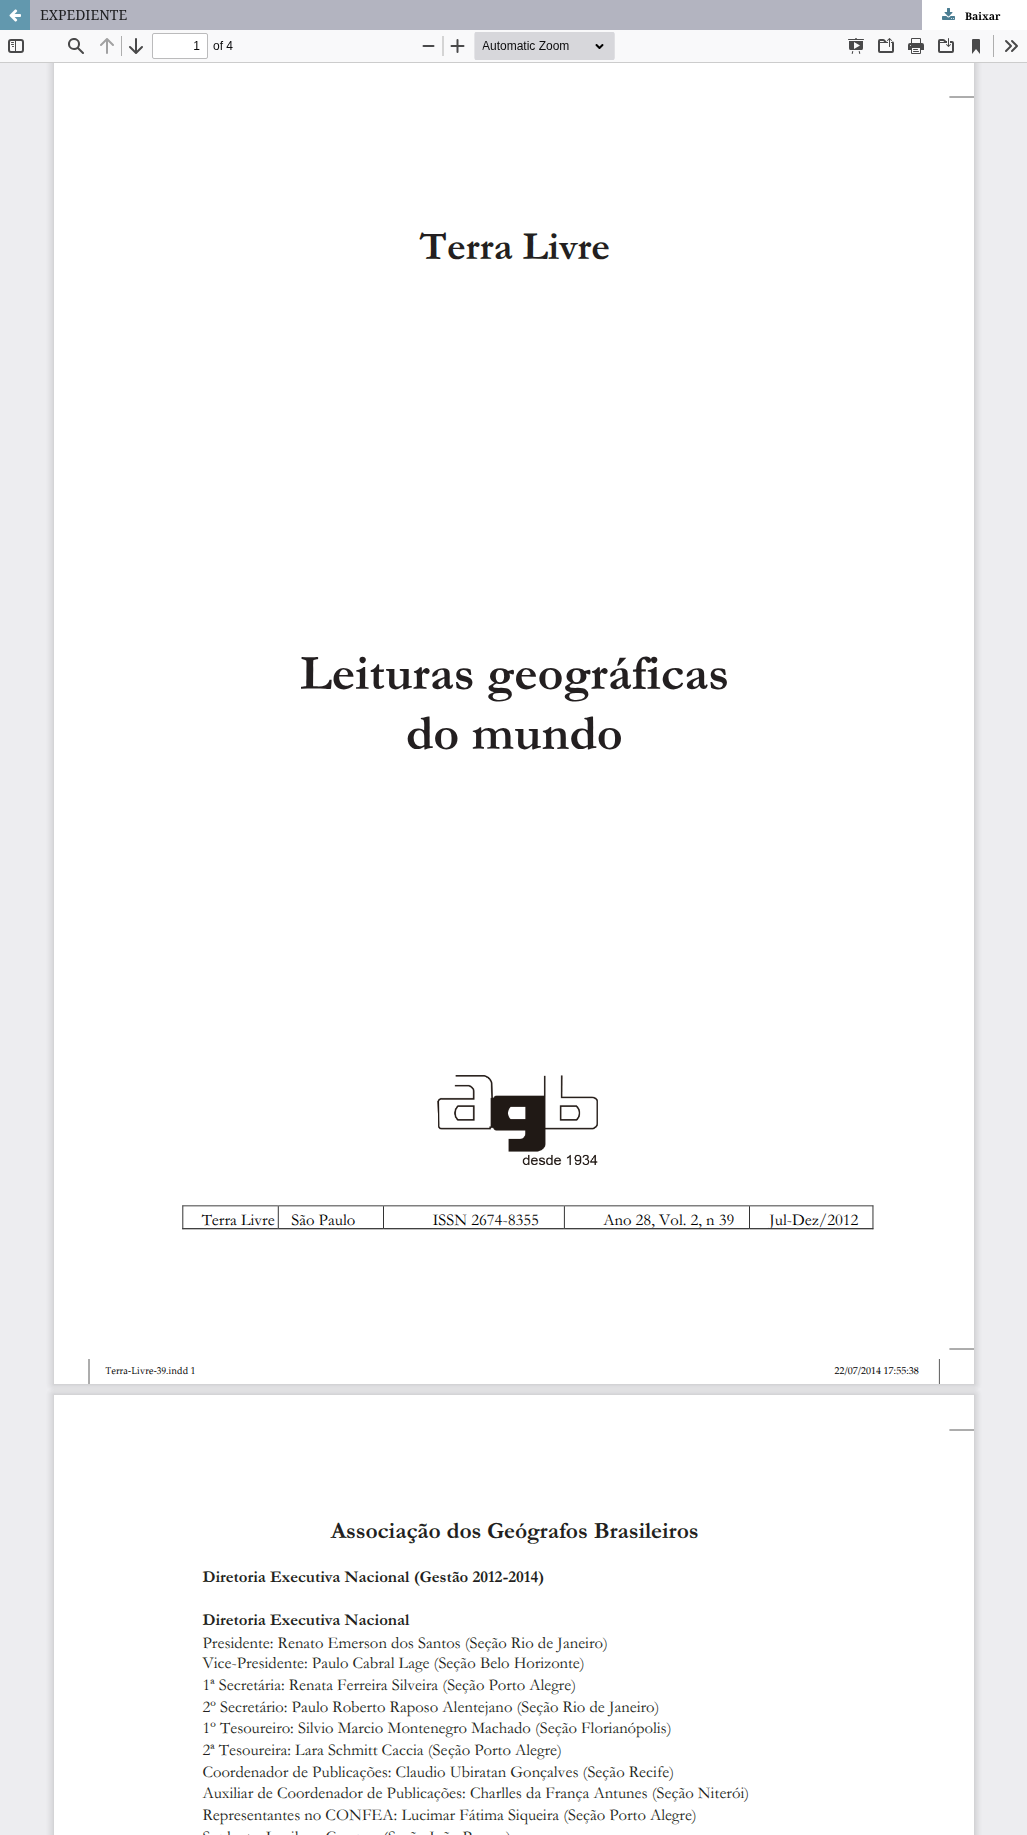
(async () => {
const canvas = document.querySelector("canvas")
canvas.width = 1027
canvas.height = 1835
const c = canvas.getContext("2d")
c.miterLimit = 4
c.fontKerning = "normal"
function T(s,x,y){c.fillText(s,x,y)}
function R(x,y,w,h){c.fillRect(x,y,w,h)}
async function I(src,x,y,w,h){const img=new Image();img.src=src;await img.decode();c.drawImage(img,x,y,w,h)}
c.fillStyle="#fff"
R(0,0,1027,1835)
c.fillStyle="#b3b4c0"
R(30,0,892,30)
c.fillStyle="#6298ae"
R(0,0,30,30)
await I("1.png",9,9,12,13)
c.font="14px Noto Serif"
c.fillStyle="#1d1d1f"
T("EXPEDIENTE",40,20)
await I("2.png",942,8,13,12)
c.font="bold 10.5px Noto Serif"
c.fillStyle="#000"
T("Baixar",965,20)
await I("3.png",0,30,1027,1805)
})()
